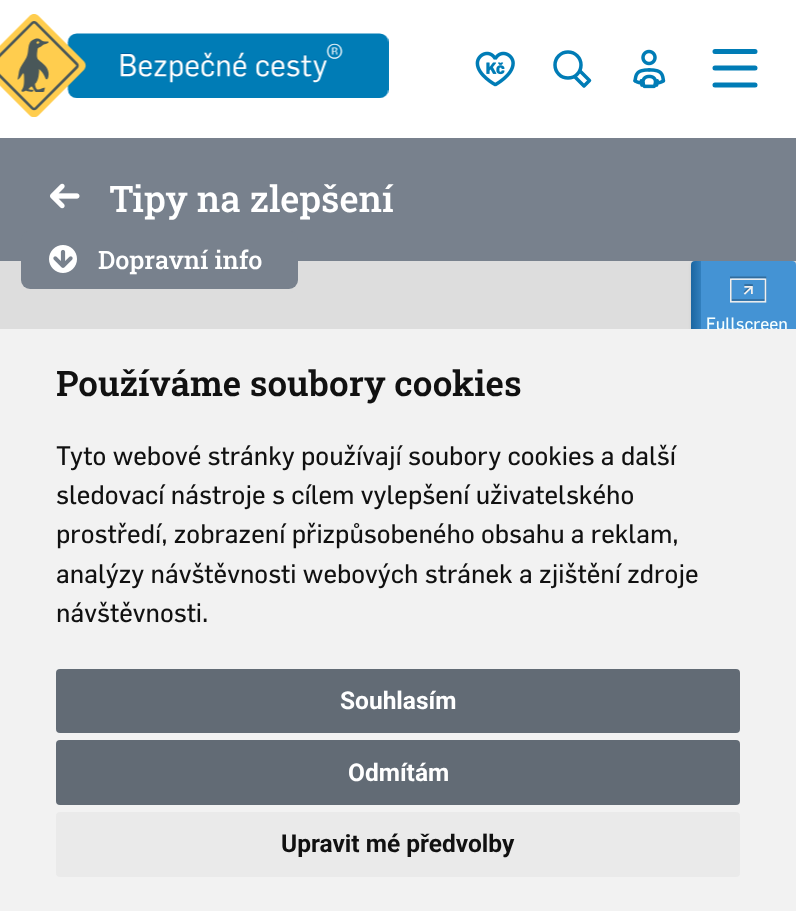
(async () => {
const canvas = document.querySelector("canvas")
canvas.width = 796
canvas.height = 911
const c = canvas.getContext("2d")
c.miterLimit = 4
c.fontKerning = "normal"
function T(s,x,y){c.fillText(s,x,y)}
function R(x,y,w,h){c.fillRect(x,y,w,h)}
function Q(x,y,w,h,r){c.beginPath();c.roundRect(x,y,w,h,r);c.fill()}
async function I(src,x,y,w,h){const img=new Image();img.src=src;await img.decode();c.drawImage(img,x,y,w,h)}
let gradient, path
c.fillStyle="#fff"
R(0,0,796,911)
await I("1.png",0,14,389,103)
await I("2.png",475,51,40,36)
path = new Path2D("M580.5 71.5l9 9l-5.5 5.5l-9-9")
c.strokeStyle="#007cb6"
c.lineWidth=3.5
c.lineCap="round"
c.lineJoin="round"
c.stroke(path)
c.beginPath()
c.arc(568,65,13,0,7)
c.stroke()
await I("3.png",633,49,33,40)
path = new Path2D("M715 68h40m0-16.5h-40m40 33.5h-40")
c.lineWidth=5
c.stroke(path)
c.fillStyle="#ddd"
R(0,261,796,68)
c.fillStyle="#0000002b"
c.filter="blur(2.5px)"
c.beginPath()
c.roundRect(693,263,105,84,4)
c.fill()
c.filter="none"
c.fillStyle="#78818d"
R(0,138,796,123)
await I("4.png",50,183,30,26)
c.font="500 36.5px Roboto Slab"
c.fillStyle="#fff"
T("Tipy na zlepšení",109,212)
c.fillStyle="#78818d"
Q(21,231,277,58,9)
await I("5.png",49,245,28,28)
c.font="500 25.25px Roboto Slab"
c.fillStyle="#fff"
T("Dopravní info",98,269)
gradient = c.createLinearGradient(796,303,691,303)
gradient.addColorStop(.9,"#4493d4")
gradient.addColorStop(.91,"#307dbb")
gradient.addColorStop(1,"#1b66a1")
c.fillStyle = gradient
Q(691,261,105,84,4)
await I("6.png",730,276,37,27)
c.font="500 17.5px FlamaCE"
c.fillStyle="#f6ffff"
T("Fullscreen",706,330)
c.fillStyle="#f2f2f2"
R(0,329,796,582)
c.font="600 35px Roboto Slab"
c.fillStyle="#111"
T("Používáme soubory cookies",56,396)
c.font="500 26.25px FlamaCE"
T("Tyto webové stránky používají soubory cookies a další",56,465)
T("sledovací nástroje s cílem vylepšení uživatelského",56,504)
T("prostředí, zobrazení přizpůsobeného obsahu a reklam,",56,543)
T("analýzy návštěvnosti webových stránek a zjištění zdroje",56,583)
T("návštěvnosti.",56,622)
c.fillStyle="#626b75"
Q(56,669,684,64,4)
c.font="bold 24.5px Roboto"
c.fillStyle="#fff"
T("Souhlasím",340,709)
c.fillStyle="#626b75"
Q(56,740,684,65,4)
c.fillStyle="#fff"
T("Odmítám",348,781)
c.fillStyle="#eaeaea"
Q(56,812,684,65,4)
c.fillStyle="#111"
T("Upravit mé předvolby",281,852)
})()
